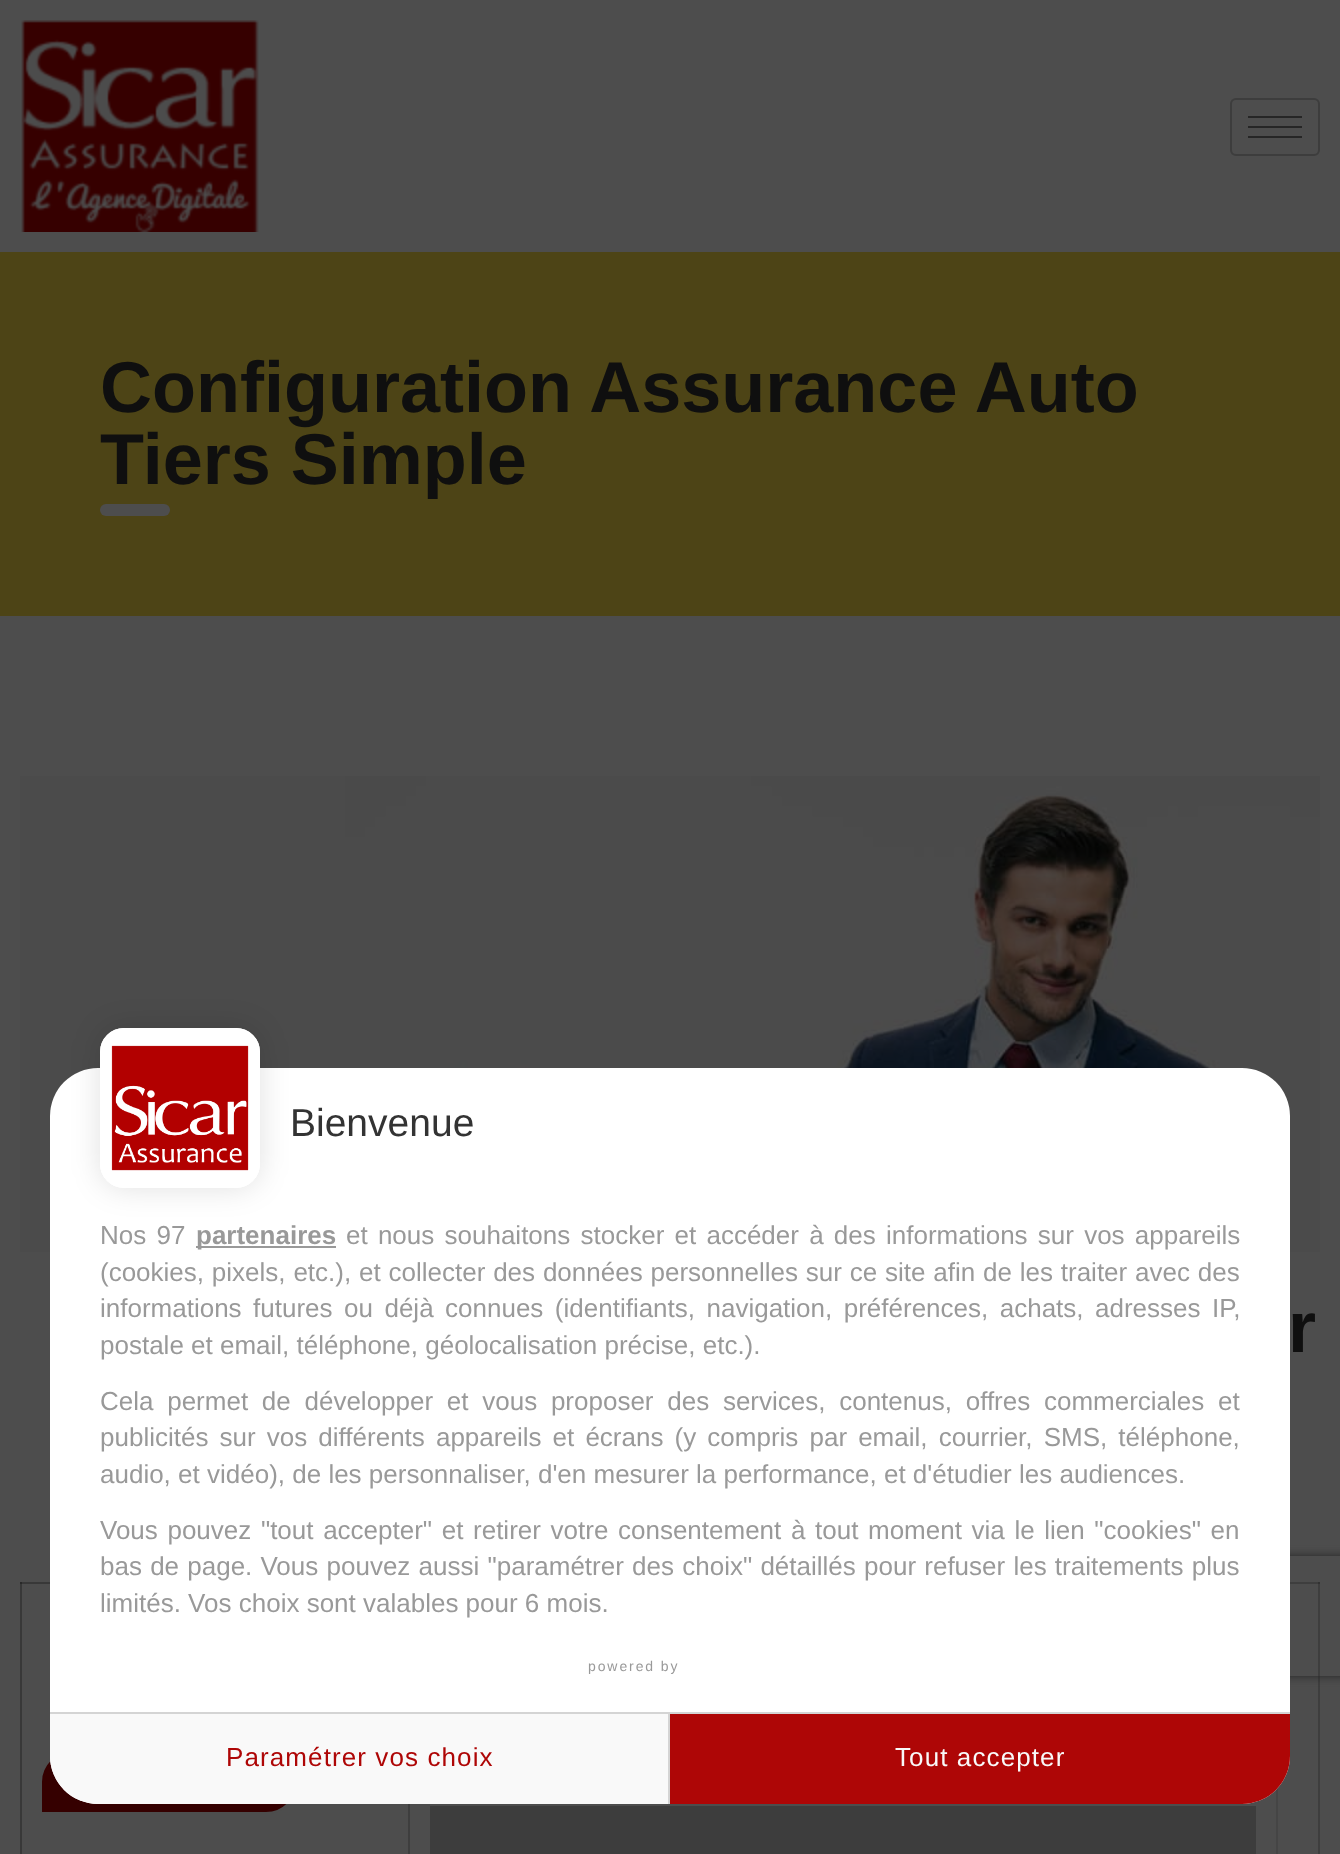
(async () => {
const canvas = document.querySelector("canvas")
canvas.width = 1340
canvas.height = 1854
const c = canvas.getContext("2d")
c.miterLimit = 4
c.fontKerning = "normal"
function T(s,x,y){c.fillText(s,x,y)}
function R(x,y,w,h){c.fillRect(x,y,w,h)}
function Q(x,y,w,h,r){c.beginPath();c.roundRect(x,y,w,h,r);c.fill()}
async function I(src,x,y,w,h){const img=new Image();img.src=src;await img.decode();c.drawImage(img,x,y,w,h)}
let path
c.fillStyle="#4d4d4d"
R(0,0,1340,1854)
c.fillStyle="#3e3e3e"
R(408,1804,2,50)
c.fillStyle="#454545"
R(1276,1787,2,67)
c.fillStyle="#383838"
R(20,1582,2,272)
c.fillStyle="#3e3e3e"
R(1318,1582,2,272)
await I("1.png",21,20,238,212)
c.beginPath()
c.roundRect(1231,99,88,56,5)
c.strokeStyle="#3d3d3d"
c.lineWidth=2
c.stroke()
c.fillStyle="#262626"
R(1248,116,54,2)
R(1248,126,54,2)
R(1248,136,54,2)
c.fillStyle="#4d4416"
R(0,252,1340,364)
c.font="bold 72px Liberation Sans"
c.fillStyle="#0f0f0f"
T("Configuration Assurance Auto",100,412)
T("Tiers Simple",100,484)
c.fillStyle="#4d4d4d"
Q(100,504,70,12,6)
await I("2.png",20,776,1300,476)
c.fillStyle="#0f0f0f"
T("r",1288,1352)
c.fillStyle="#3e3e3e"
R(1290,1582,30,2)
c.fillStyle="#383838"
R(20,1582,30,2)
c.fillStyle="#292929"
R(20,1582,2,2)
c.fillStyle="#323232"
R(1318,1582,2,2)
c.fillStyle="#3d3d3d"
R(430,1806,826,48)
c.fillStyle="#350000"
c.beginPath()
c.roundRect(41,1751,256,62,[31,31,31,0])
c.fill()
c.strokeStyle="#4d4d4d"
c.stroke()
c.save()
path = new Path2D("M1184 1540h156v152h-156zm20 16h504c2 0 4 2 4 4v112c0 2-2 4-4 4h-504c-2 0-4-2-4-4v-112c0-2 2-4 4-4z")
c.clip(path,"evenodd")
c.fillStyle="#262626"
c.filter="blur(5px)"
c.beginPath()
c.roundRect(1200,1556,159,120,4)
c.fill()
c.filter="none"
c.restore()
c.fillStyle="#fff"
Q(50,1068,1240,736,48)
c.fillStyle="#0000001f"
c.filter="blur(15px)"
c.beginPath()
c.roundRect(100,1028,160,160,24)
c.fill()
c.filter="none"
c.fillStyle="#fff"
Q(100,1028,160,160,24)
await I("3.png",111,1045,138,126)
c.beginPath()
c.roundRect(105,1033,150,150,19)
c.strokeStyle="#fff"
c.lineWidth=10
c.stroke()
c.font="39px Liberation Sans"
c.fillStyle="#333"
T("Bienvenue",290,1136)
c.wordSpacing="3px"
c.font="26px Liberation Sans"
c.fillStyle="#999"
T("Nos 97",100,1244)
R(196,1246,140,2)
c.wordSpacing="0px"
c.font="bold 26px Liberation Sans"
T("partenaires",196,1244)
c.wordSpacing="3px"
c.font="26px Liberation Sans"
T("et nous souhaitons stocker et accéder à des informations sur vos appareils",346,1244)
c.wordSpacing="0.6px"
T("(cookies, pixels, etc.), et collecter des données personnelles sur ce site afin de les traiter avec des",100,1281)
c.wordSpacing="4.25px"
T("informations futures ou déjà connues (identifiants, navigation, préférences, achats, adresses IP,",100,1317)
c.wordSpacing="0px"
T("postale et email, téléphone, géolocalisation précise, etc.).",100,1354)
c.wordSpacing="6.5px"
T("Cela permet de développer et vous proposer des services, contenus, offres commerciales et",100,1410)
c.wordSpacing="3.9px"
T("publicités sur vos différents appareils et écrans (y compris par email, courrier, SMS, téléphone,",100,1446)
c.wordSpacing="0px"
T("audio, et vidéo), de les personnaliser, d'en mesurer la performance, et d'étudier les audiences.",100,1483)
c.wordSpacing="2.4px"
T("Vous pouvez \"tout accepter\" et retirer votre consentement à tout moment via le lien \"cookies\" en",100,1539)
c.wordSpacing="1px"
T("bas de page",100,1575)
T(". Vous pouvez aussi \"paramétrer des choix\" détaillés pour refuser les traitements plus",245,1575)
c.wordSpacing="0px"
T("limités. Vos choix sont valables pour 6 mois.",100,1612)
c.letterSpacing="1.9px"
c.font="14px Liberation Sans"
T("powered by",588,1671)
c.fillStyle="#f9f9f9"
c.beginPath()
c.roundRect(50,1712,620,92,[0,0,0,48])
c.fill()
c.fillStyle="#d4d4d4"
R(50,1712,620,2)
R(668,1712,2,92)
c.letterSpacing="1.1px"
c.font="26px Liberation Sans"
c.fillStyle="#ae0606"
T("Paramétrer vos choix",226,1766)
c.beginPath()
c.roundRect(670,1712,620,92,[0,0,48,0])
c.fill()
c.fillStyle="#d4d4d4"
R(670,1712,620,2)
c.fillStyle="#f9f9f9"
T("Tout accepter",895,1766)
})()
